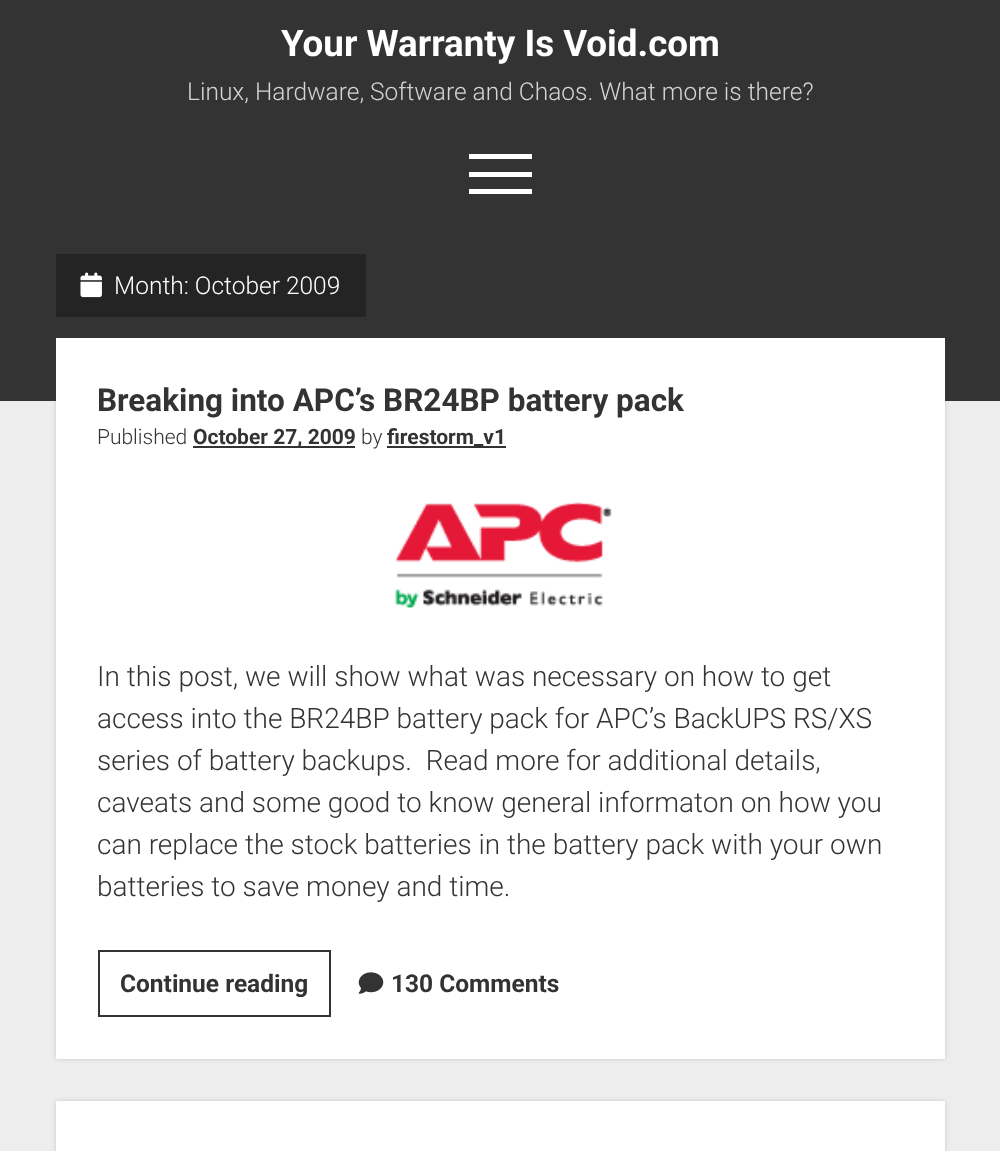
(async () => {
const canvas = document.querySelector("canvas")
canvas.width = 1000
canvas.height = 1151
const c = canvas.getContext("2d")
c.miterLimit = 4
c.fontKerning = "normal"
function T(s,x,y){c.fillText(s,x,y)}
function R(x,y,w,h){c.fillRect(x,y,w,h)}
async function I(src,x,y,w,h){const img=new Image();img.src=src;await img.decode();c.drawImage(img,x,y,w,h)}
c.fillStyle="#ededed"
R(0,0,1000,1151)
c.fillStyle="#333"
R(0,0,1000,401)
c.font="bold 36.75px Roboto"
c.fillStyle="#fff"
T("Your Warranty Is Void.com",281,56)
c.font="300 24.5px Roboto"
c.fillStyle="#d4d4d4"
T("Linux, Hardware, Software and Chaos. What more is there?",187,100)
c.fillStyle="#fff"
R(469,154,63,5)
R(469,172,63,5)
R(469,189,63,5)
c.fillStyle="#242424"
R(56,254,310,63)
await I("1.png",80,272,22,26)
c.fillStyle="#fff"
T("Month: October 2009",114,294)
c.fillStyle="#3a3a3a33"
c.filter="blur(2px)"
c.beginPath()
c.rect(56,338,889,721)
c.fill()
c.filter="none"
c.fillStyle="#fff"
R(56,338,889,721)
c.font="bold 31.5px Roboto"
c.fillStyle="#333"
T("Breaking into APC’s BR24BP battery pack",97,411)
c.font="300 21px Roboto"
T("Published",97,444)
R(193,446,162,2)
c.font="bold 21px Roboto"
T("October 27, 2009",193,444)
c.font="300 21px Roboto"
T("by",361,444)
R(387,446,119,2)
c.font="bold 21px Roboto"
T("firestorm_v1",387,444)
await I("2.png",395,502,217,106)
c.font="300 28px Roboto"
T("In this post, we will show what was necessary on how to get",97,686)
T("access into the BR24BP battery pack for APC’s BackUPS RS/XS",97,728)
T("series of battery backups.  Read more for additional details,",97,770)
T("caveats and some good to know general informaton on how you",97,812)
T("can replace the stock batteries in the battery pack with your own",97,854)
T("batteries to save money and time.",97,896)
c.strokeStyle="#333"
c.lineWidth=2
c.strokeRect(99,951,231,65)
c.font="bold 24.5px Roboto"
T("Continue reading",120,992)
await I("3.png",358,972,26,22)
T("130 Comments",391,992)
c.fillStyle="#3a3a3a33"
c.filter="blur(2px)"
c.beginPath()
c.rect(56,1101,889,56)
c.fill()
c.filter="none"
c.fillStyle="#fff"
R(56,1101,889,50)
})()
